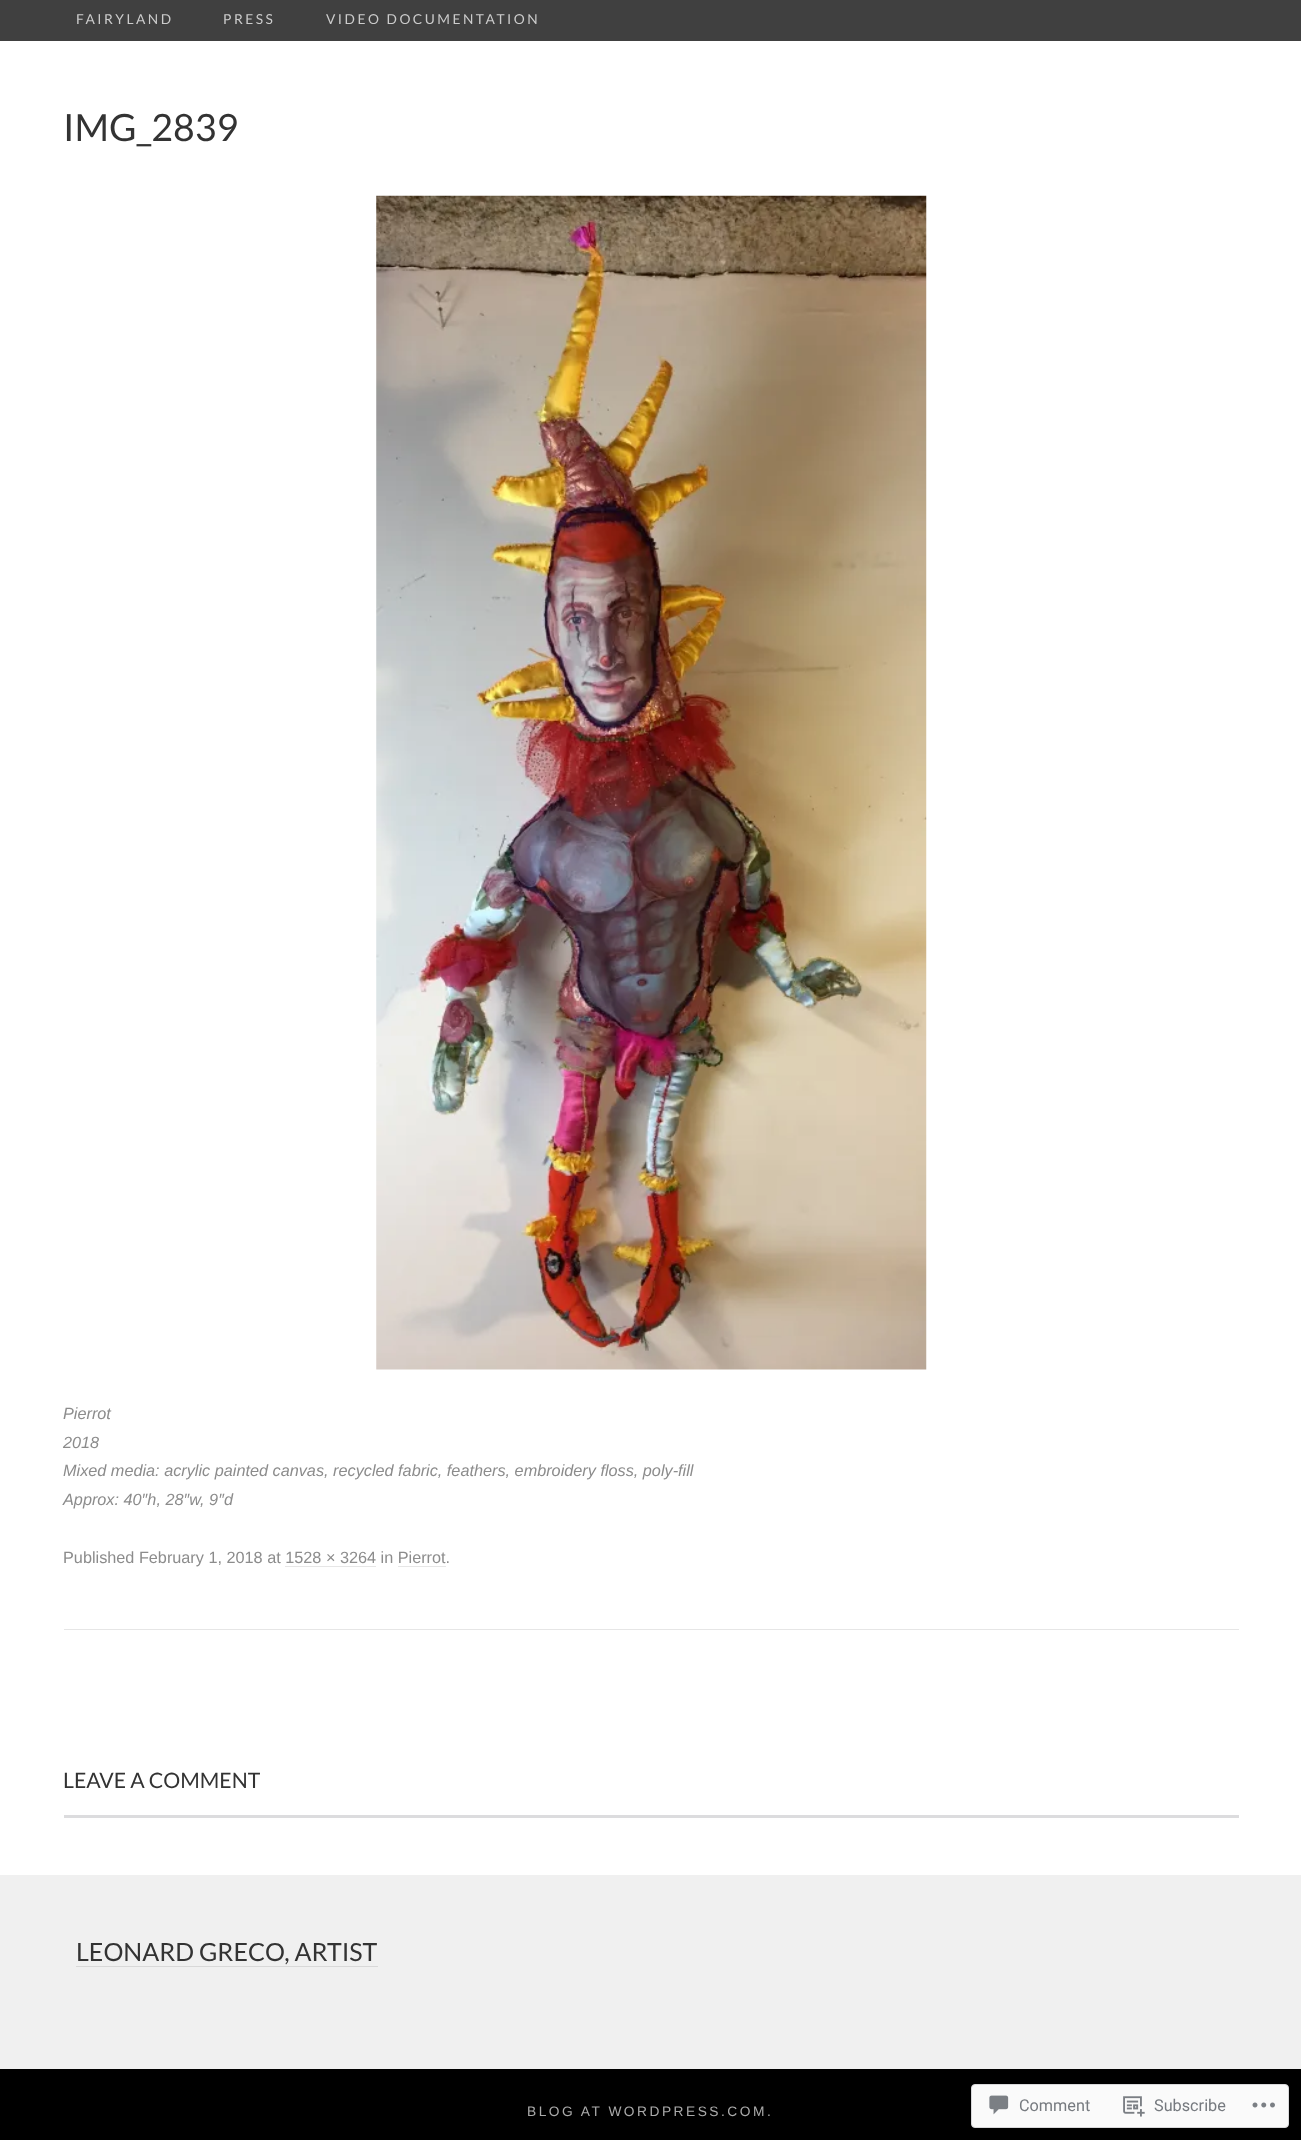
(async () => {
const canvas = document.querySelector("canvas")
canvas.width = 1301
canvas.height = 2140
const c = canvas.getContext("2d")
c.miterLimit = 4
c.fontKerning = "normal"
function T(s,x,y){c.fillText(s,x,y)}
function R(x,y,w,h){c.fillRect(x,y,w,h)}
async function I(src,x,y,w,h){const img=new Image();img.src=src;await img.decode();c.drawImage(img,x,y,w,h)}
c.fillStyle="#fff"
R(0,0,1301,2140)
c.fillStyle="#404040"
R(0,0,1301,41)
c.letterSpacing="2.5px"
c.font="13.75px Lato"
c.fillStyle="#ccc"
T("FAIRYLAND",76,24)
T("PRESS",223,24)
T("VIDEO DOCUMENTATION",326,24)
c.fillStyle="#e6e6e6"
R(64,1629,1175,1)
c.letterSpacing="0px"
c.font="37.5px Lato"
c.fillStyle="#333"
T("IMG_2839",63,141)
await I("1.png",376,195,551,1175)
c.font="italic 16.25px Liberation Sans"
c.fillStyle="#8c8c8c"
T("Pierrot",63,1419)
T("2018",63,1448)
T("Mixed media: acrylic painted canvas, recycled fabric, feathers, embroidery floss, poly-fill",63,1476)
T("Approx: 40″h, 28″w, 9″d",63,1505)
c.font="16.25px Liberation Sans"
T("Published February 1, 2018 at 1528 × 3264 in Pierrot.",63,1563)
c.fillStyle="#e6e6e6"
R(285,1566,91,1)
R(398,1566,48,1)
c.font="21.25px Lato"
c.fillStyle="#333"
T("LEAVE A COMMENT",63,1788)
c.fillStyle="#dcdcde"
R(64,1815,1175,3)
c.fillStyle="#f0f0f0"
R(0,1875,1301,194)
c.font="25px Lato"
c.fillStyle="#333"
T("LEONARD GRECO, ARTIST",76,1961)
c.fillStyle="#d8d8d8"
R(76,1966,302,1)
c.fillStyle="#000"
R(0,2069,1301,71)
c.letterSpacing="2.5px"
c.font="13.75px Liberation Sans"
c.fillStyle="#aaa"
T("BLOG AT WORDPRESS.COM.",527,2116)
c.fillStyle="#fafafa"
c.beginPath()
c.roundRect(971.5,2084.5,317,43,3.5)
c.fill()
c.strokeStyle="#d8d8da"
c.stroke()
await I("2.png",989,2095,20,20)
c.letterSpacing="0px"
c.font="16.25px Roboto"
c.fillStyle="#767a7f"
T("Comment",1019,2111)
await I("3.png",1123,2096,22,21)
T("Subscribe",1154,2111)
await I("4.png",1252,2102,23,6)
})()
